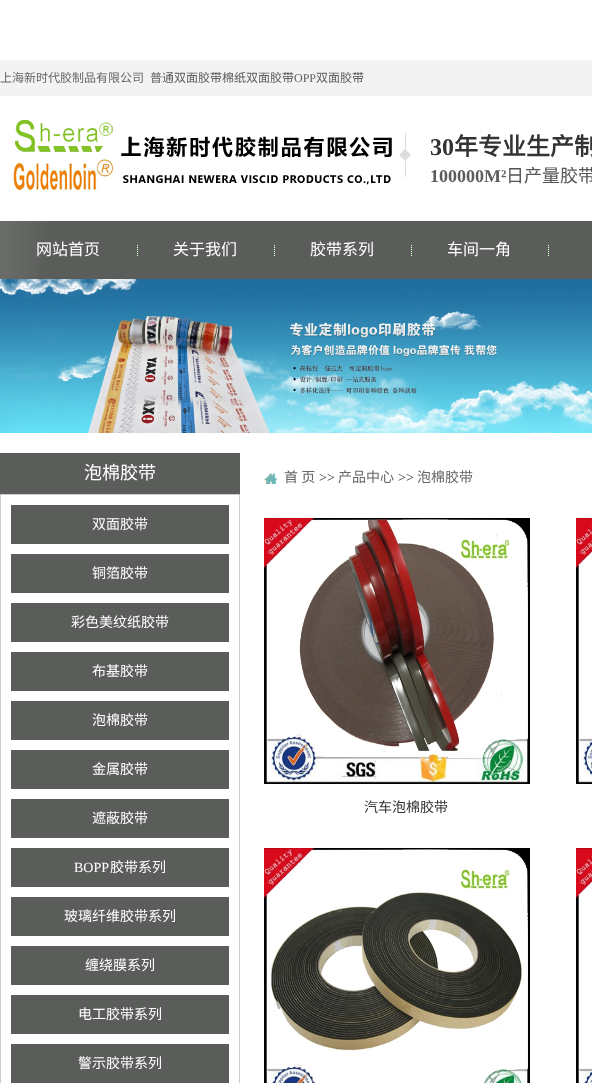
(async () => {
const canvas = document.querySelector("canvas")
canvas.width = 592
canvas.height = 1083
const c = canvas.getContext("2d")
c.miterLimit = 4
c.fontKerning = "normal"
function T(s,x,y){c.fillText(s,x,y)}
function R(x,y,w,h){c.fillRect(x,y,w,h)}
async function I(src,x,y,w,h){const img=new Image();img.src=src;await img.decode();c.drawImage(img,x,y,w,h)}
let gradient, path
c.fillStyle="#fff"
R(0,0,592,1083)
c.fillStyle="#f3f3f3"
R(0,60,592,36)
c.font="12px Noto Sans CJK SC"
c.fillStyle="#666"
T("上海新时代胶制品有限公司",0,82)
c.fillStyle="#5a5d5a"
T("普通双面胶带棉纸双面胶带",150,82)
c.font="12px Liberation Serif"
T("OPP",294,82)
c.font="12px Noto Sans CJK SC"
T("双面胶带",316,82)
await I("1.png",13,120,379,71)
await I("2.png",400,133,10,44)
c.font="bold 24px Liberation Serif"
c.fillStyle="#333"
T("30",430,155)
c.font="bold 24px Noto Sans CJK SC"
T("年专业生产制",454,155)
c.font="bold 18px Liberation Serif"
c.fillStyle="#5a5d5a"
T("100000M²",430,182)
c.font="18px Noto Sans CJK SC"
c.fillStyle="#555"
T("日产量胶带",506,182)
c.fillStyle="#5a5d5a"
R(36,221,556,58)
gradient = c.createLinearGradient(-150,250,50,250)
gradient.addColorStop(0,"#5a5d5a")
gradient.addColorStop(.5,"#7b7d7b")
gradient.addColorStop(1,"#5a5d5a")
c.fillStyle = gradient
path = new Path2D("M-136 221h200l-28 58h-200z")
c.fill(path)
c.font="16px Noto Sans CJK SC"
c.fillStyle="#fff"
T("网站首页",36,255)
await I("3.png",137,245,1,11)
T("关于我们",173,255)
await I("3.png",274,245,1,11)
T("胶带系列",310,255)
await I("3.png",411,245,1,11)
T("车间一角",447,255)
await I("3.png",548,245,1,11)
await I("4.png",0,279,592,154)
c.fillStyle="#5a5d5a"
R(0,453,240,41)
c.font="18px Noto Sans CJK SC"
c.fillStyle="#fff"
T("泡棉胶带",84,479)
c.strokeStyle="#ccc"
c.strokeRect(.5,494.5,239,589)
c.fillStyle="#5a5d5a"
R(11,505,218,39)
c.font="14px Noto Sans CJK SC"
c.fillStyle="#fff"
T("双面胶带",92,529)
c.fillStyle="#5a5d5a"
R(11,554,218,39)
c.fillStyle="#fff"
T("铜箔胶带",92,578)
c.fillStyle="#5a5d5a"
R(11,603,218,39)
c.fillStyle="#fff"
T("彩色美纹纸胶带",71,627)
c.fillStyle="#5a5d5a"
R(11,652,218,39)
c.fillStyle="#fff"
T("布基胶带",92,676)
c.fillStyle="#5a5d5a"
R(11,701,218,39)
c.fillStyle="#fff"
T("泡棉胶带",92,725)
c.fillStyle="#5a5d5a"
R(11,750,218,39)
c.fillStyle="#fff"
T("金属胶带",92,774)
c.fillStyle="#5a5d5a"
R(11,799,218,39)
c.fillStyle="#fff"
T("遮蔽胶带",92,823)
c.fillStyle="#5a5d5a"
R(11,848,218,39)
c.font="14px Liberation Serif"
c.fillStyle="#fff"
T("BOPP",74,872)
c.font="14px Noto Sans CJK SC"
T("胶带系列",110,872)
c.fillStyle="#5a5d5a"
R(11,897,218,39)
c.fillStyle="#fff"
T("玻璃纤维胶带系列",64,921)
c.fillStyle="#5a5d5a"
R(11,946,218,39)
c.fillStyle="#fff"
T("缠绕膜系列",85,970)
c.fillStyle="#5a5d5a"
R(11,995,218,39)
c.fillStyle="#fff"
T("电工胶带系列",78,1019)
c.fillStyle="#5a5d5a"
R(11,1044,218,39)
c.fillStyle="#fff"
T("警示胶带系列",78,1068)
await I("5.png",264,473,13,11)
c.fillStyle="#666"
T("首 页",284,482)
c.font="14px Liberation Serif"
c.fillStyle="#333"
T(">>",319,482)
c.font="14px Noto Sans CJK SC"
c.fillStyle="#666"
T("产品中心",338,482)
c.font="14px Liberation Serif"
c.fillStyle="#333"
T(">>",398,482)
c.font="14px Noto Sans CJK SC"
c.fillStyle="#666"
T("泡棉胶带",417,482)
await I("6.png",576,518,16,266)
await I("7.png",264,518,266,266)
c.fillStyle="#333"
T("汽车泡棉胶带",364,812)
await I("8.png",264,848,266,235)
await I("9.png",576,848,16,235)
})()
